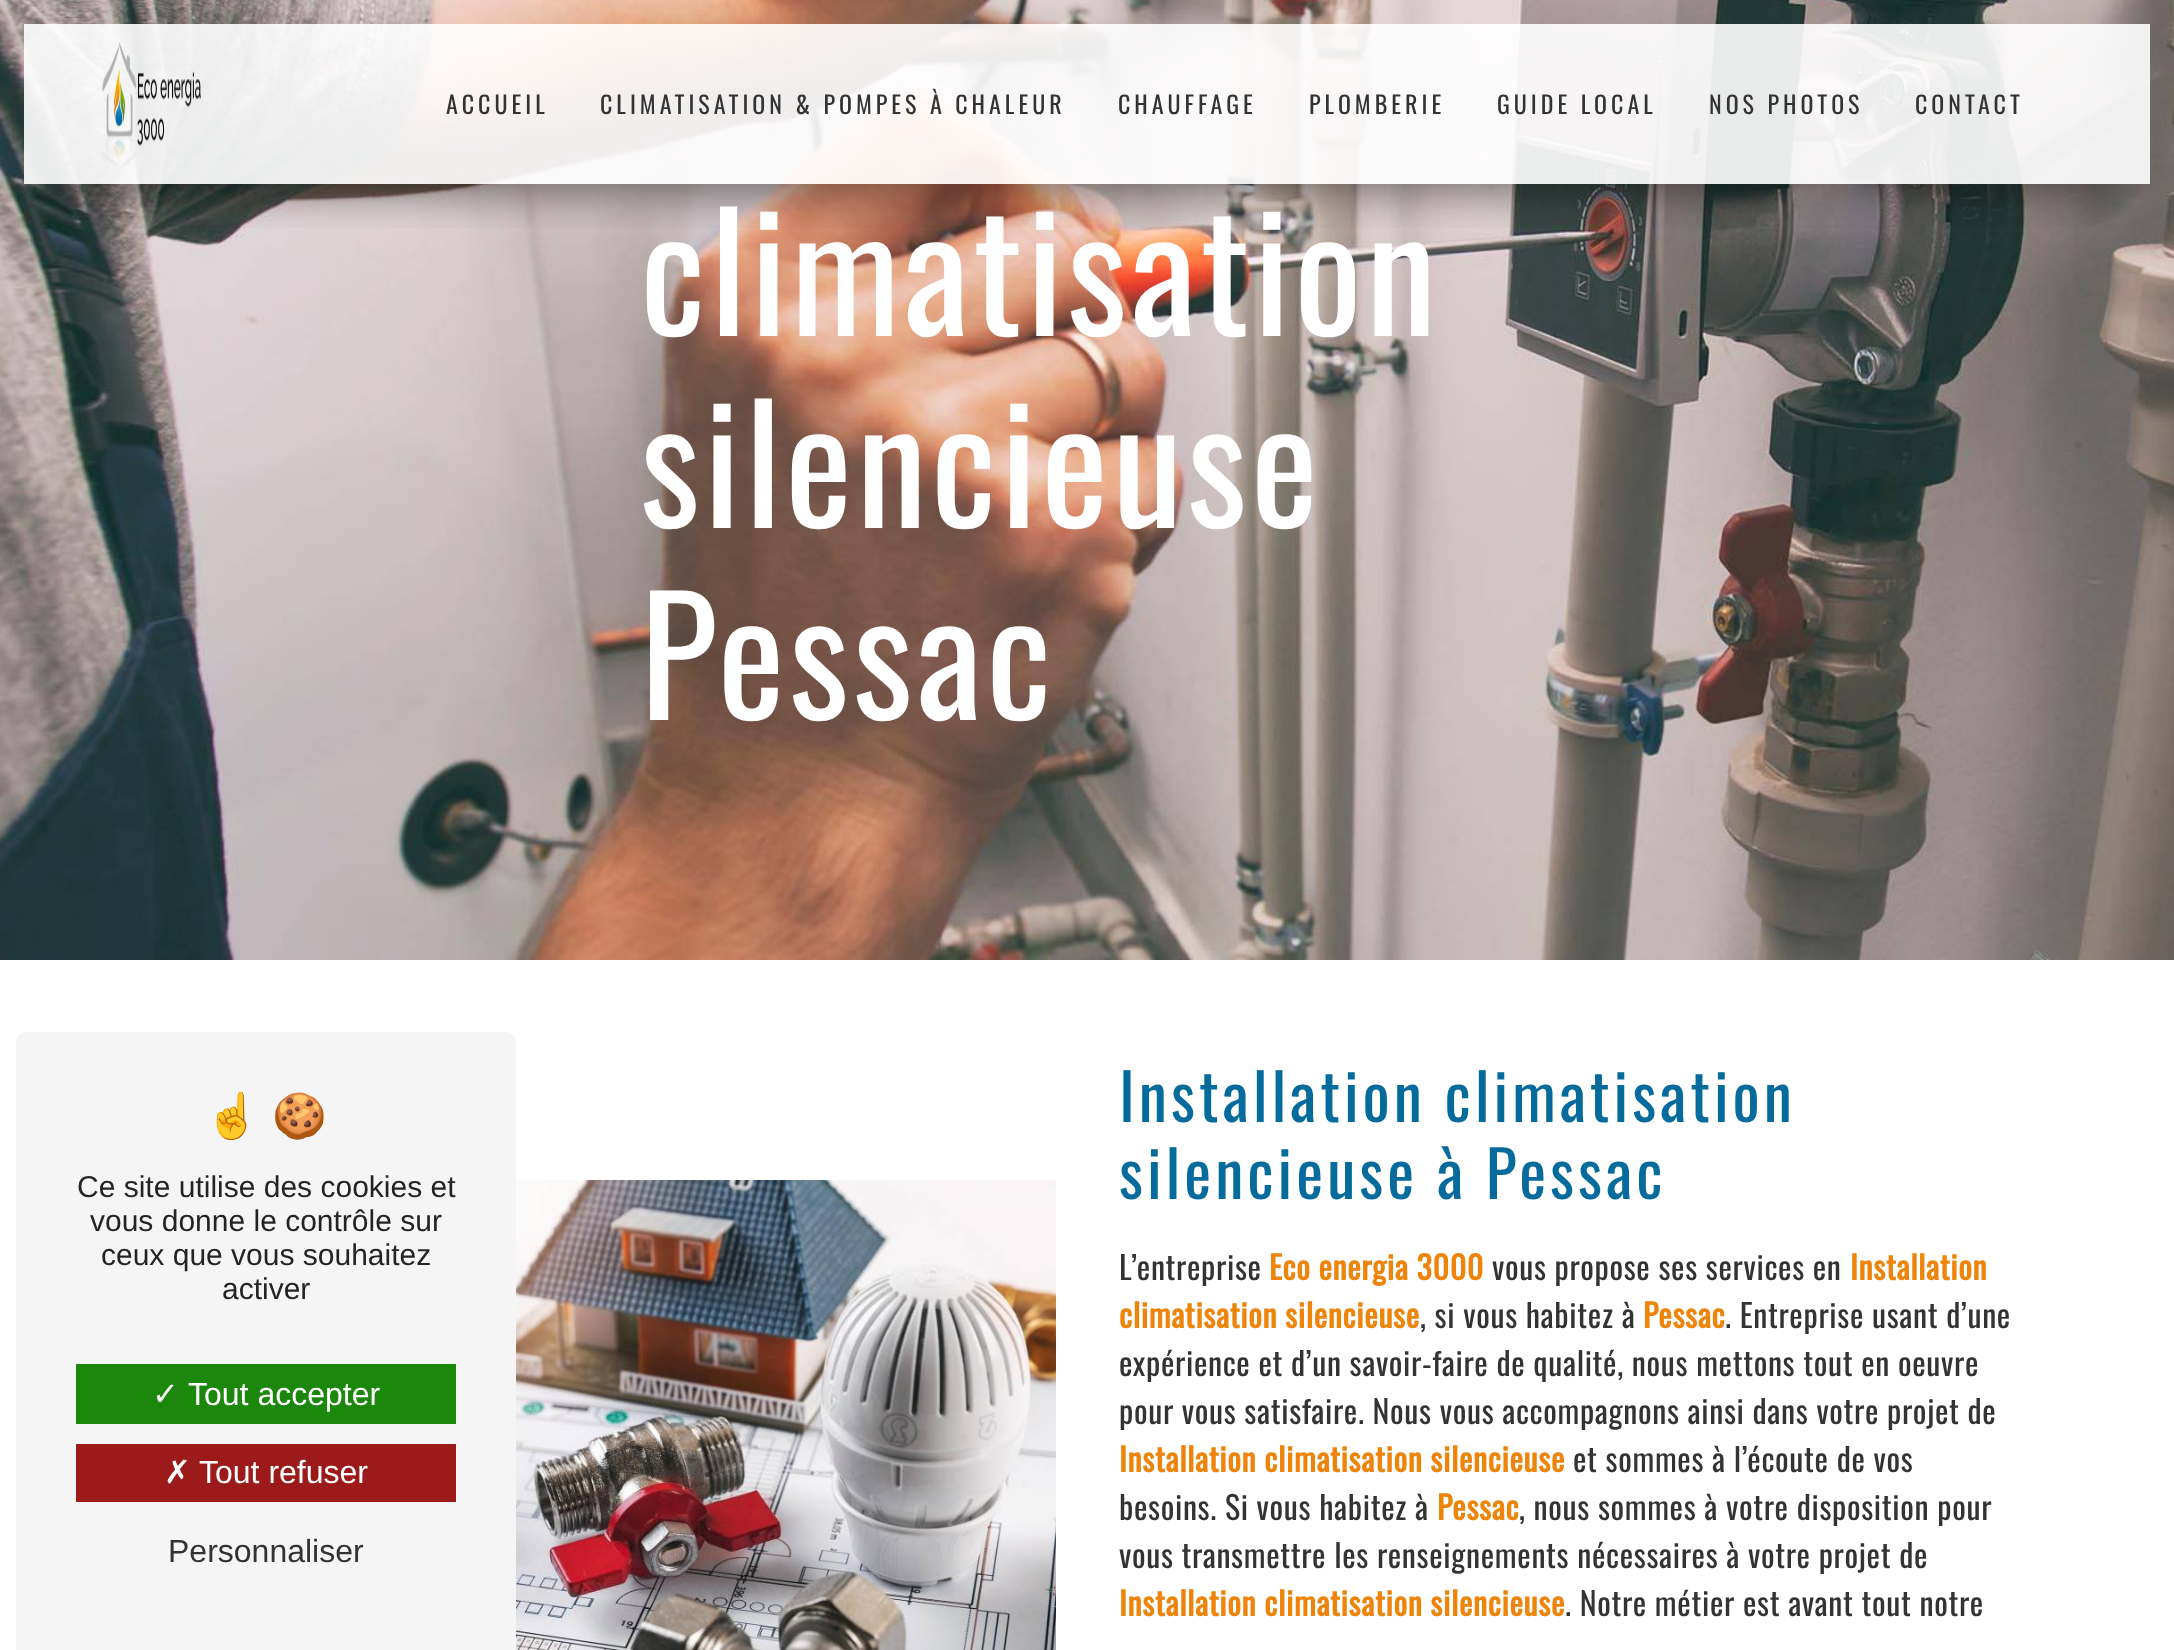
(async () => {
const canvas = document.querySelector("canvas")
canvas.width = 2174
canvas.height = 1650
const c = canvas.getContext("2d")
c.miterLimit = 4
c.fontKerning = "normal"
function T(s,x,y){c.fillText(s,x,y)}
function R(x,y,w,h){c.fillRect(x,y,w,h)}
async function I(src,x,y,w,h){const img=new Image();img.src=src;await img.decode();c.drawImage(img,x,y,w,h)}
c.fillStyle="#fff"
R(0,0,2174,1650)
c.fillStyle="#f5f5f5"
c.beginPath()
c.roundRect(16,1032,500,618,[10,10,0,0])
c.fill()
c.font="44px Noto Color Emoji"
c.fillStyle="#242424"
T("☝",205,1131)
T("🍪",272,1131)
c.font="30px Liberation Sans"
T("Ce site utilise des cookies et",77,1197)
T("vous donne le contrôle sur",90,1231)
T("ceux que vous souhaitez",101,1265)
T("activer",222,1299)
c.fillStyle="#1b870b"
R(76,1364,380,60)
c.font="32px DejaVu Sans"
c.fillStyle="#fff"
T("✓",152,1405)
c.font="32px Liberation Sans"
T("Tout accepter",188,1405)
c.fillStyle="#9c1a1a"
R(76,1444,380,58)
c.font="32px DejaVu Sans"
c.fillStyle="#fff"
T("✗",164,1483)
c.font="32px Liberation Sans"
T("Tout refuser",199,1483)
c.fillStyle="#333"
T("Personnaliser",168,1562)
await I("2.png",0,0,2174,960)
c.save()
c.beginPath()
c.rect(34,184,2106,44)
c.clip()
c.fillStyle="#00000073"
c.filter="blur(20px)"
c.beginPath()
c.rect(64,114,2046,80)
c.fill()
c.filter="none"
c.restore()
c.fillStyle="#ffffffe6"
R(24,24,2126,160)
await I("1.png",102,42,99,128)
c.letterSpacing="4px"
c.font="24px Oswald"
c.fillStyle="#333"
T("ACCUEIL",446,114)
T("CLIMATISATION & POMPES À CHALEUR",600,114)
T("CHAUFFAGE",1118,114)
T("PLOMBERIE",1309,114)
T("GUIDE LOCAL",1497,114)
T("NOS PHOTOS",1709,114)
T("CONTACT",1915,114)
c.font="160px Oswald"
c.fillStyle="#fff"
T("climatisation",640,336)
T("silencieuse",640,528)
T("Pessac",640,720)
await I("3.png",516,1180,540,470)
c.font="64px Oswald"
c.fillStyle="#046b9c"
T("Installation climatisation",1119,1122)
T("silencieuse à Pessac",1119,1199)
c.letterSpacing="0.65px"
c.font="32px Oswald"
c.fillStyle="#333"
T("L’entreprise",1119,1280)
c.font="bold 32px Oswald"
c.fillStyle="#ee840a"
T("Eco energia 3000",1269,1280)
c.font="32px Oswald"
c.fillStyle="#333"
T("vous propose ses services en",1492,1280)
c.font="bold 32px Oswald"
c.fillStyle="#ee840a"
T("Installation",1850,1280)
T("climatisation silencieuse",1119,1328)
c.font="32px Oswald"
c.fillStyle="#333"
T(", si vous habitez à",1420,1328)
c.font="bold 32px Oswald"
c.fillStyle="#ee840a"
T("Pessac",1643,1328)
c.font="32px Oswald"
c.fillStyle="#333"
T(". Entreprise usant d’une",1725,1328)
T("expérience et d’un savoir-faire de qualité, nous mettons tout en oeuvre",1119,1376)
T("pour vous satisfaire. Nous vous accompagnons ainsi dans votre projet de",1119,1424)
c.font="bold 32px Oswald"
c.fillStyle="#ee840a"
T("Installation climatisation silencieuse",1119,1472)
c.font="32px Oswald"
c.fillStyle="#333"
T("et sommes à l’écoute de vos",1573,1472)
T("besoins. Si vous habitez à",1119,1520)
c.font="bold 32px Oswald"
c.fillStyle="#ee840a"
T("Pessac",1437,1520)
c.font="32px Oswald"
c.fillStyle="#333"
T(", nous sommes à votre disposition pour",1519,1520)
T("vous transmettre les renseignements nécessaires à votre projet de",1119,1568)
c.font="bold 32px Oswald"
c.fillStyle="#ee840a"
T("Installation climatisation silencieuse",1119,1616)
c.font="32px Oswald"
c.fillStyle="#333"
T(". Notre métier est avant tout notre",1565,1616)
})()
